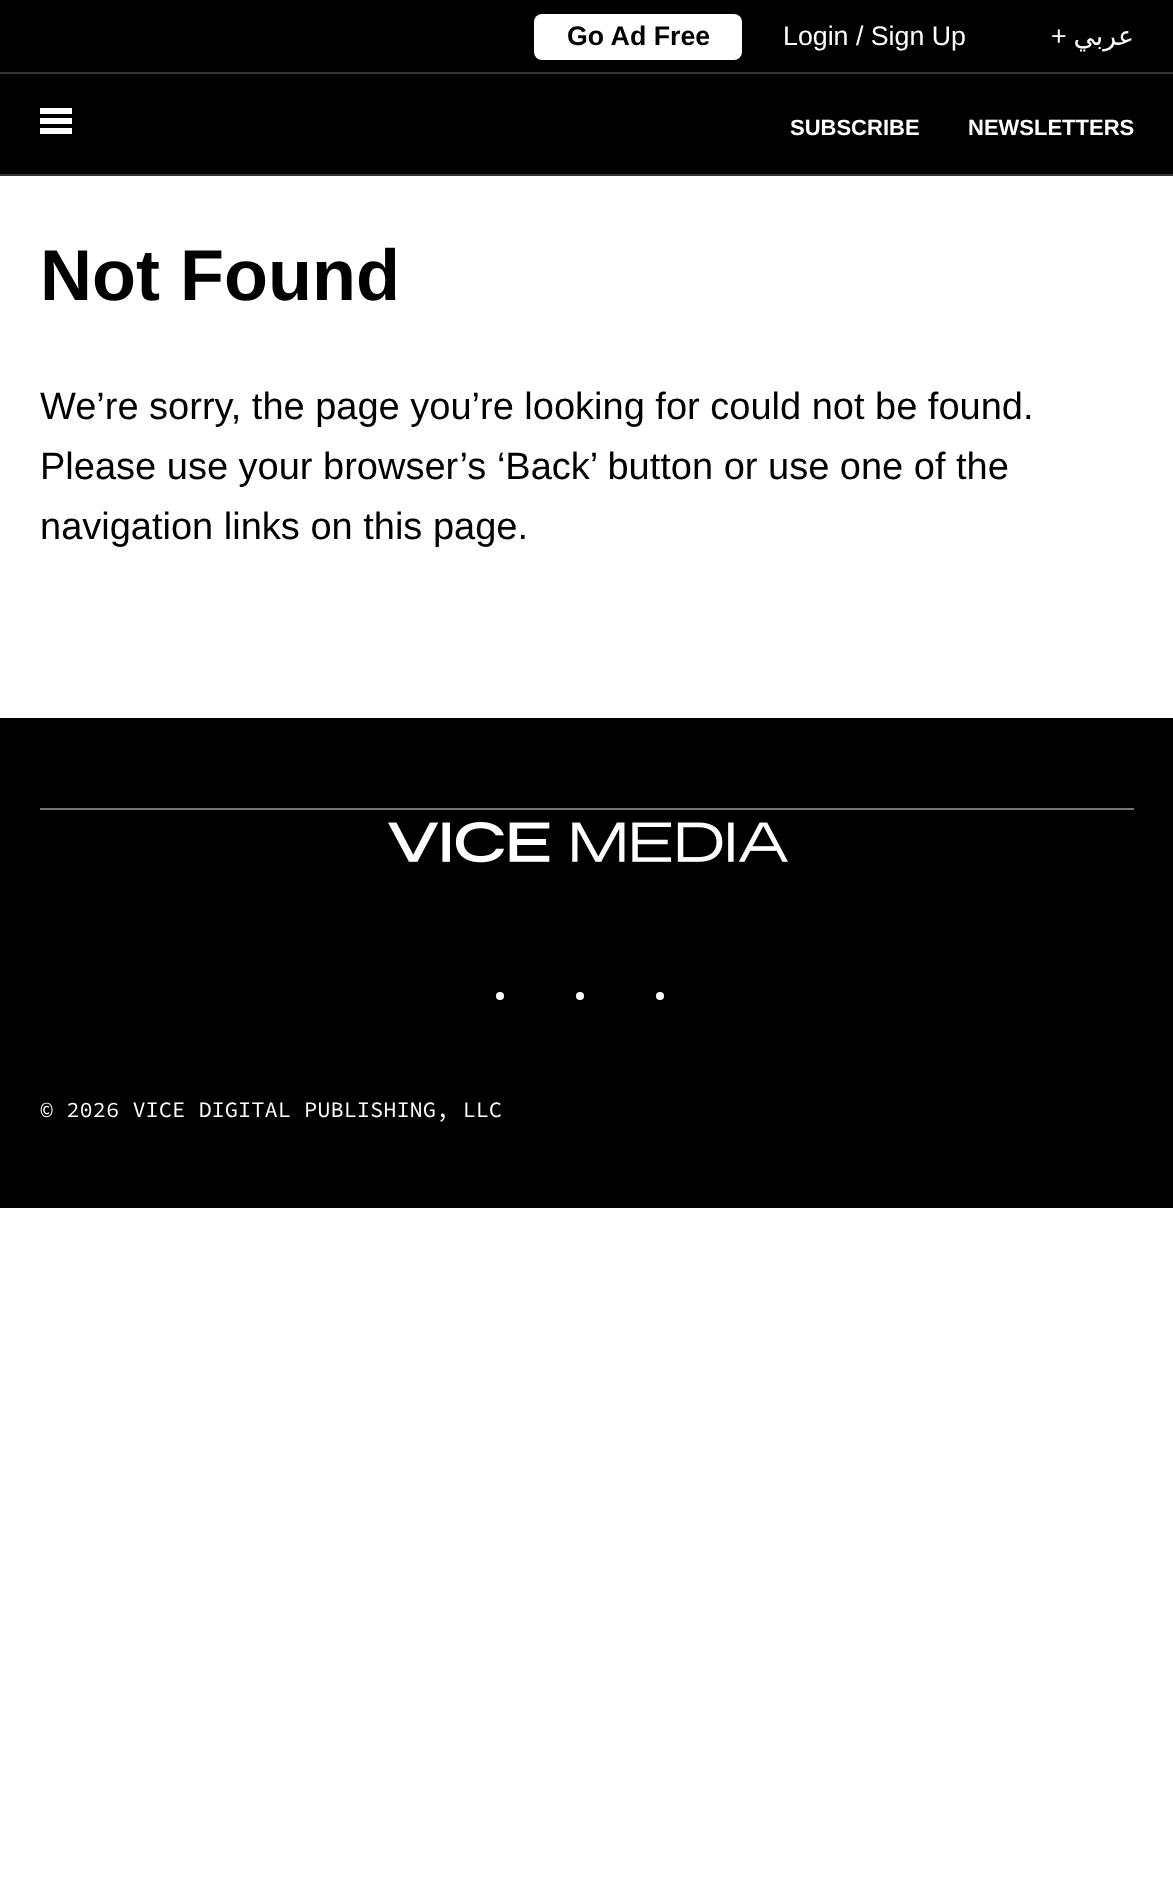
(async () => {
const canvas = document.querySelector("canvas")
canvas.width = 1173
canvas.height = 1892
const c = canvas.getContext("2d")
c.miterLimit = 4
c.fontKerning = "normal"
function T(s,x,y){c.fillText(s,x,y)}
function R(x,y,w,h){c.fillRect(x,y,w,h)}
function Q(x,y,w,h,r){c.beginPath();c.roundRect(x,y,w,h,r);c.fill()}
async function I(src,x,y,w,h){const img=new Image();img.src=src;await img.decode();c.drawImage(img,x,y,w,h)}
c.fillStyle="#fff"
R(0,0,1173,1892)
c.fillStyle="#000"
R(0,0,1173,174)
c.fillStyle="#333"
R(0,174,1173,2)
R(0,72,1173,2)
c.fillStyle="#fff"
Q(534,14,208,46,8)
c.font="bold 26.75px Liberation Sans"
c.fillStyle="#000"
T("Go Ad Free",567,45)
c.font="26.75px Liberation Sans"
c.fillStyle="#fff"
T("Login / Sign Up",783,45)
T("+",1051,45)
c.direction="rtl"
c.font="26.75px DejaVu Sans"
T("عربي",1134,45)
await I("1.png",40,108,32,26)
c.direction="ltr"
c.font="bold 22px Liberation Sans"
T("SUBSCRIBE",790,135)
T("NEWSLETTERS",968,135)
c.font="bold 72px Liberation Sans"
c.fillStyle="#000"
T("Not Found",40,300)
c.font="38px Liberation Sans"
T("We’re sorry, the page you’re looking for could not be found.",40,419)
T("Please use your browser’s ‘Back’ button or use one of the",40,479)
T("navigation links on this page.",40,539)
R(0,718,1173,490)
c.fillStyle="#757575"
R(40,808,1094,2)
await I("2.png",388,822,400,41)
c.fillStyle="#fff"
c.beginPath()
c.arc(500,996,4,0,7)
c.fill()
c.beginPath()
c.arc(580,996,4,0,7)
c.fill()
c.beginPath()
c.arc(660,996,4,0,7)
c.fill()
c.font="22px Source Code Pro"
T("© 2026 VICE DIGITAL PUBLISHING, LLC",40,1117)
})()
